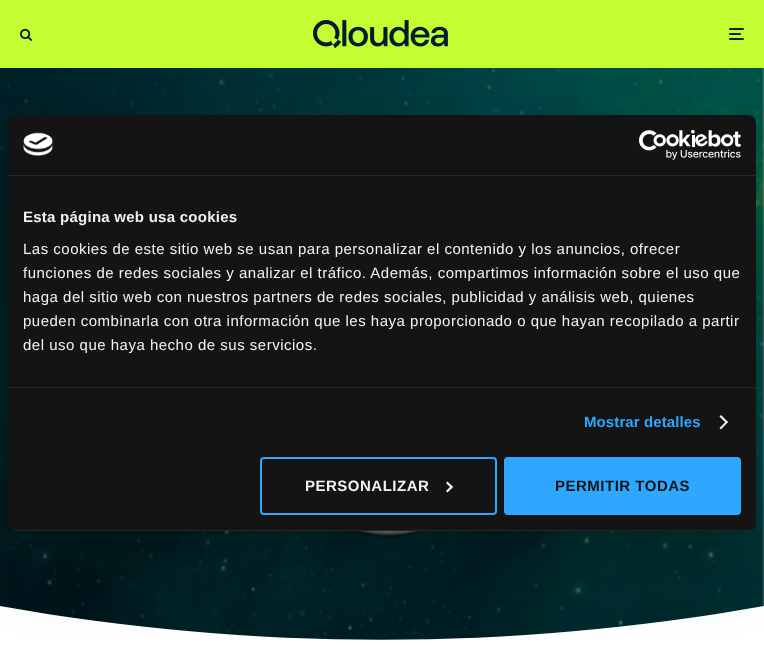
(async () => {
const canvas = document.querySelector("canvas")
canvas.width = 764
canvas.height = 645
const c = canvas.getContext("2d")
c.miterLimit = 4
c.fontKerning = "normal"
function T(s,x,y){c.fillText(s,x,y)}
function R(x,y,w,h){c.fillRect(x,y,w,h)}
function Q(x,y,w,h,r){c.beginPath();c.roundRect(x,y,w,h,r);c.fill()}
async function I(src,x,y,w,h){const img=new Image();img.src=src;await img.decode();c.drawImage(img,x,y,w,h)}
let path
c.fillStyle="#fff"
R(0,0,764,645)
c.fillStyle="#c3fe33"
R(0,0,764,68)
await I("1.png",20,28,12,13)
await I("2.png",313,20,135,28)
c.fillStyle="#112230"
Q(729,33,12,2,1)
Q(729,28,15,2,1)
Q(729,38,15,2,1)
await I("3.png",0,68,764,572)
c.save()
c.beginPath()
c.rect(0,606,764,37)
c.clip()
c.fillStyle="#fff"
path = new Path2D("M0 606c252 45 511 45 764 0v38h-764z")
c.fill(path)
c.restore()
c.fillStyle="#0000004d"
c.filter="blur(34px)"
c.beginPath()
c.roundRect(8,147,748,416,8)
c.fill()
c.filter="none"
c.fillStyle="#141414"
Q(8,115,748,416,8)
c.fillStyle="#272727"
R(8,175,748,1)
await I("4.png",23,132,30,24)
await I("5.png",639,130,102,30)
R(8,387,748,1)
c.letterSpacing="0.25px"
c.font="bold 15px Liberation Sans"
c.fillStyle="#f2f2f2"
T("Esta página web usa cookies",23,222)
c.letterSpacing="0.5px"
c.font="15px Liberation Sans"
T("Las cookies de este sitio web se usan para personalizar el contenido y los anuncios, ofrecer",23,254)
T("funciones de redes sociales y analizar el tráfico. Además, compartimos información sobre el uso que",23,278)
T("haga del sitio web con nuestros partners de redes sociales, publicidad y análisis web, quienes",23,302)
T("pueden combinarla con otra información que les haya proporcionado o que hayan recopilado a partir",23,326)
T("del uso que haya hecho de sus servicios.",23,350)
c.letterSpacing="0.1px"
c.font="bold 15px Liberation Sans"
c.fillStyle="#2ea7ff"
T("Mostrar detalles",584,427)
c.fillStyle="#f2f2f2"
path = new Path2D("M721 415l7 7l-1.5 1.5l-7-7z")
c.fill(path)
path = new Path2D("M726.5 421l1.5 1l-7 7.5l-1.5-1.5z")
c.fill(path)
c.save()
c.beginPath()
c.roundRect(8,115,748,416,8)
c.clip()
c.fillStyle="#ffffff14"
R(8,530,748,1)
c.restore()
c.beginPath()
c.roundRect(261,458,235,56,3)
c.strokeStyle="#2ea7ff"
c.lineWidth=2
c.stroke()
c.letterSpacing="0.5px"
T("PERSONALIZAR",305,491)
path = new Path2D("M447.5 481.5l5.5 5.5l-1.5 1.5l-5.5-5.5z")
c.fill(path)
path = new Path2D("M451.5 485.5l1.5 1.5l-5.5 5.5l-1.5-1.5z")
c.fill(path)
c.fillStyle="#2ea7ff"
c.beginPath()
c.roundRect(505,458,235,56,3)
c.fill()
c.stroke()
c.fillStyle="#141414"
T("PERMITIR TODAS",555,491)
})()
